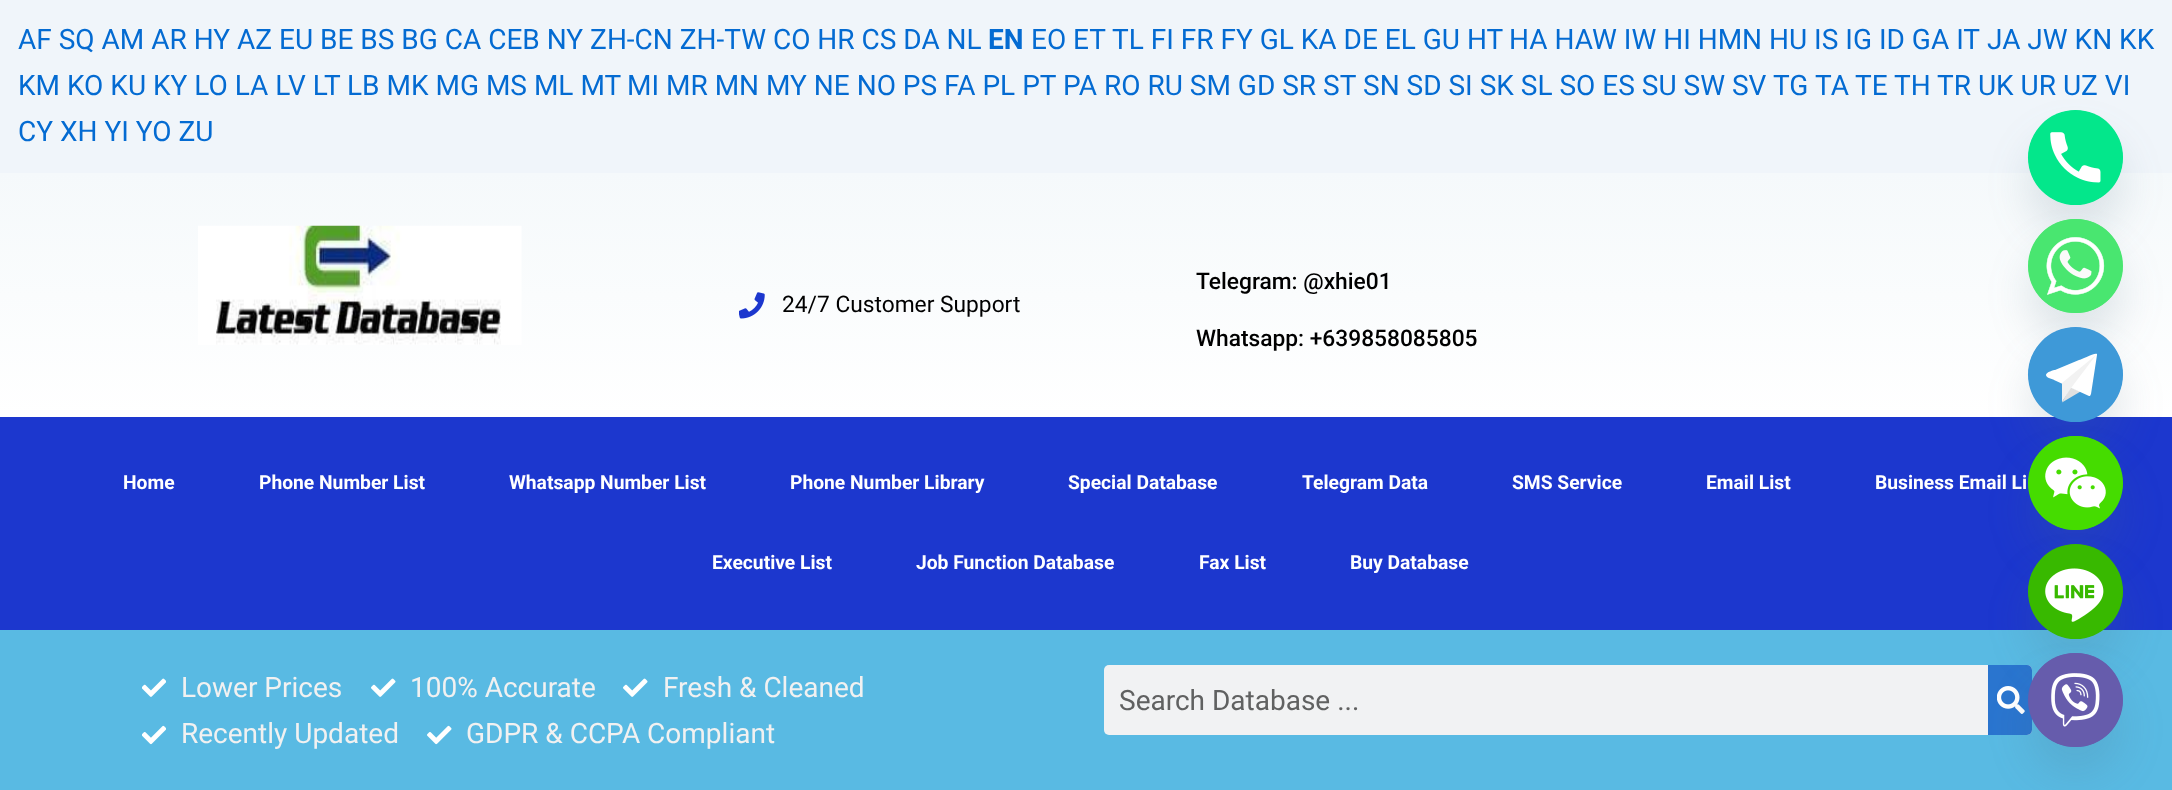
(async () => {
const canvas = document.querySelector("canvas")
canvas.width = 2172
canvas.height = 790
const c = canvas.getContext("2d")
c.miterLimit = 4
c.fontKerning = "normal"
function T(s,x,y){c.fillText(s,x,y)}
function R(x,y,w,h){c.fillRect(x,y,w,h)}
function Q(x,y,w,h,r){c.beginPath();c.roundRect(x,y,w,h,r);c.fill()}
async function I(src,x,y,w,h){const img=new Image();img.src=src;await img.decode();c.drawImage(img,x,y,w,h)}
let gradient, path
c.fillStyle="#f0f5fa"
R(0,0,2172,790)
c.font="28px Roboto"
c.fillStyle="#046bd2"
T("AF SQ AM AR HY AZ EU BE BS BG CA CEB NY ZH-CN ZH-TW CO HR CS DA NL",18,49)
c.font="bold 28px Roboto"
T("EN",988,49)
c.font="28px Roboto"
T("EO ET",1031,49)
T("TL FI FR FY GL KA DE EL GU HT",1112,49)
T("HA HAW IW HI HMN HU IS IG ID GA IT",1509,49)
T("JA JW KN KK",1987,49)
T("KM KO KU KY LO LA LV LT",18,95)
T("LB MK MG MS ML MT",347,95)
T("MI MR MN MY NE NO PS FA PL PT",627,95)
T("PA RO RU SM GD SR ST",1063,95)
T("SN SD SI SK SL SO ES SU SW SV",1363,95)
T("TG",1773,95)
T("TA",1815,95)
T("TE",1855,95)
T("TH",1894,95)
T("TR UK UR UZ VI",1937,95)
T("CY XH YI YO ZU",18,141)
gradient = c.createLinearGradient(1087,173,1087,417)
gradient.addColorStop(0,"#f5f9fb")
gradient.addColorStop(1,"#fff")
c.fillStyle = gradient
R(0,173,2172,244)
await I("1.png",198,225,324,120)
await I("2.png",739,292,26,27)
c.font="22.75px Roboto"
c.fillStyle="#000"
T("24/7 Customer Support",782,312)
c.font="500 22.75px Roboto"
T("Telegram: @xhie01",1196,289)
T("Whatsapp: +639858085805",1196,346)
c.fillStyle="#1c37ce"
R(0,417,2172,213)
c.font="bold 19.25px Roboto"
c.fillStyle="#fff"
T("Home",123,489)
T("Phone Number List",259,489)
T("Whatsapp Number List",509,489)
T("Phone Number Library",790,489)
T("Special Database",1068,489)
T("Telegram Data",1302,489)
T("SMS Service",1512,489)
T("Email List",1706,489)
T("Business Email Li",1875,489)
T("Executive List",712,569)
T("Job Function Database",916,569)
T("Fax List",1199,569)
T("Buy Database",1350,569)
c.fillStyle="#59bae3"
R(0,630,2172,160)
await I("3.png",142,678,24,19)
c.font="28px Roboto"
c.fillStyle="#f1f1f1"
T("Lower Prices",181,697)
await I("4.png",371,678,25,19)
T("100% Accurate",410,697)
await I("4.png",623,678,25,19)
T("Fresh & Cleaned",663,697)
await I("5.png",142,725,24,20)
T("Recently Updated",181,743)
await I("6.png",427,725,25,20)
T("GDPR & CCPA Compliant",466,743)
c.fillStyle="#f1f2f3"
Q(1104,665,928,70,5)
c.fillStyle="#606161"
T("Search Database ...",1119,710)
c.fillStyle="#2a75cf"
c.beginPath()
c.roundRect(1988,665,44,70,[0,5,5,0])
c.fill()
await I("7.png",1997,686,28,28)
c.fillStyle="#49687e29"
c.filter="blur(21px)"
c.beginPath()
c.roundRect(2028,138,95,95,47.5)
c.fill()
c.filter="none"
c.fillStyle="#03e78b"
c.beginPath()
c.arc(2075.5,157.5,47.5,0,7)
c.fill()
await I("8.png",2028,110,95,95)
c.fillStyle="#49687e29"
c.filter="blur(21px)"
c.beginPath()
c.roundRect(2028,247,95,94,47)
c.fill()
c.filter="none"
c.fillStyle="#49e670"
Q(2028,219,95,94,47)
await I("9.png",2028,219,95,94)
c.fillStyle="#49687e29"
c.filter="blur(21px)"
c.beginPath()
c.roundRect(2028,355,95,95,47.5)
c.fill()
c.filter="none"
c.fillStyle="#3e99d8"
c.beginPath()
c.arc(2075.5,374.5,47.5,0,7)
c.fill()
c.beginPath()
c.arc(2075.5,374.5,47,0,7)
c.fill()
c.fillStyle="#e0e0e0"
path = new Path2D("M2070.5 387l-8.5 15.5l18.5-11z")
c.fill(path)
c.fillStyle="#fff"
path = new Path2D("M2097 354c-2-2-16 6-18 6l-24 10c-1 0-9 2-9 5c0 3 7 4 8 5l35 16h1l1-2l6-39z")
c.fill(path)
c.fillStyle="#f2f2f2"
path = new Path2D("M2096 355l-34 28v19l9-14z")
c.fill(path)
c.fillStyle="#49687e29"
c.filter="blur(21px)"
c.beginPath()
c.roundRect(2028,464,95,94,47)
c.fill()
c.filter="none"
c.fillStyle="#45dc00"
Q(2028,436,95,94,47)
await I("10.png",2028,436,95,94)
c.fillStyle="#49687e29"
c.filter="blur(21px)"
c.beginPath()
c.roundRect(2028,572,95,95,47.5)
c.fill()
c.filter="none"
c.fillStyle="#38b900"
c.beginPath()
c.arc(2075.5,591.5,47.5,0,7)
c.fill()
await I("11.png",2028,544,95,95)
c.fillStyle="#49687e29"
c.filter="blur(21px)"
c.beginPath()
c.roundRect(2028,681,95,94,47)
c.fill()
c.filter="none"
c.fillStyle="#665cac"
Q(2028,653,95,94,47)
await I("12.png",2032,653,91,94)
})()
